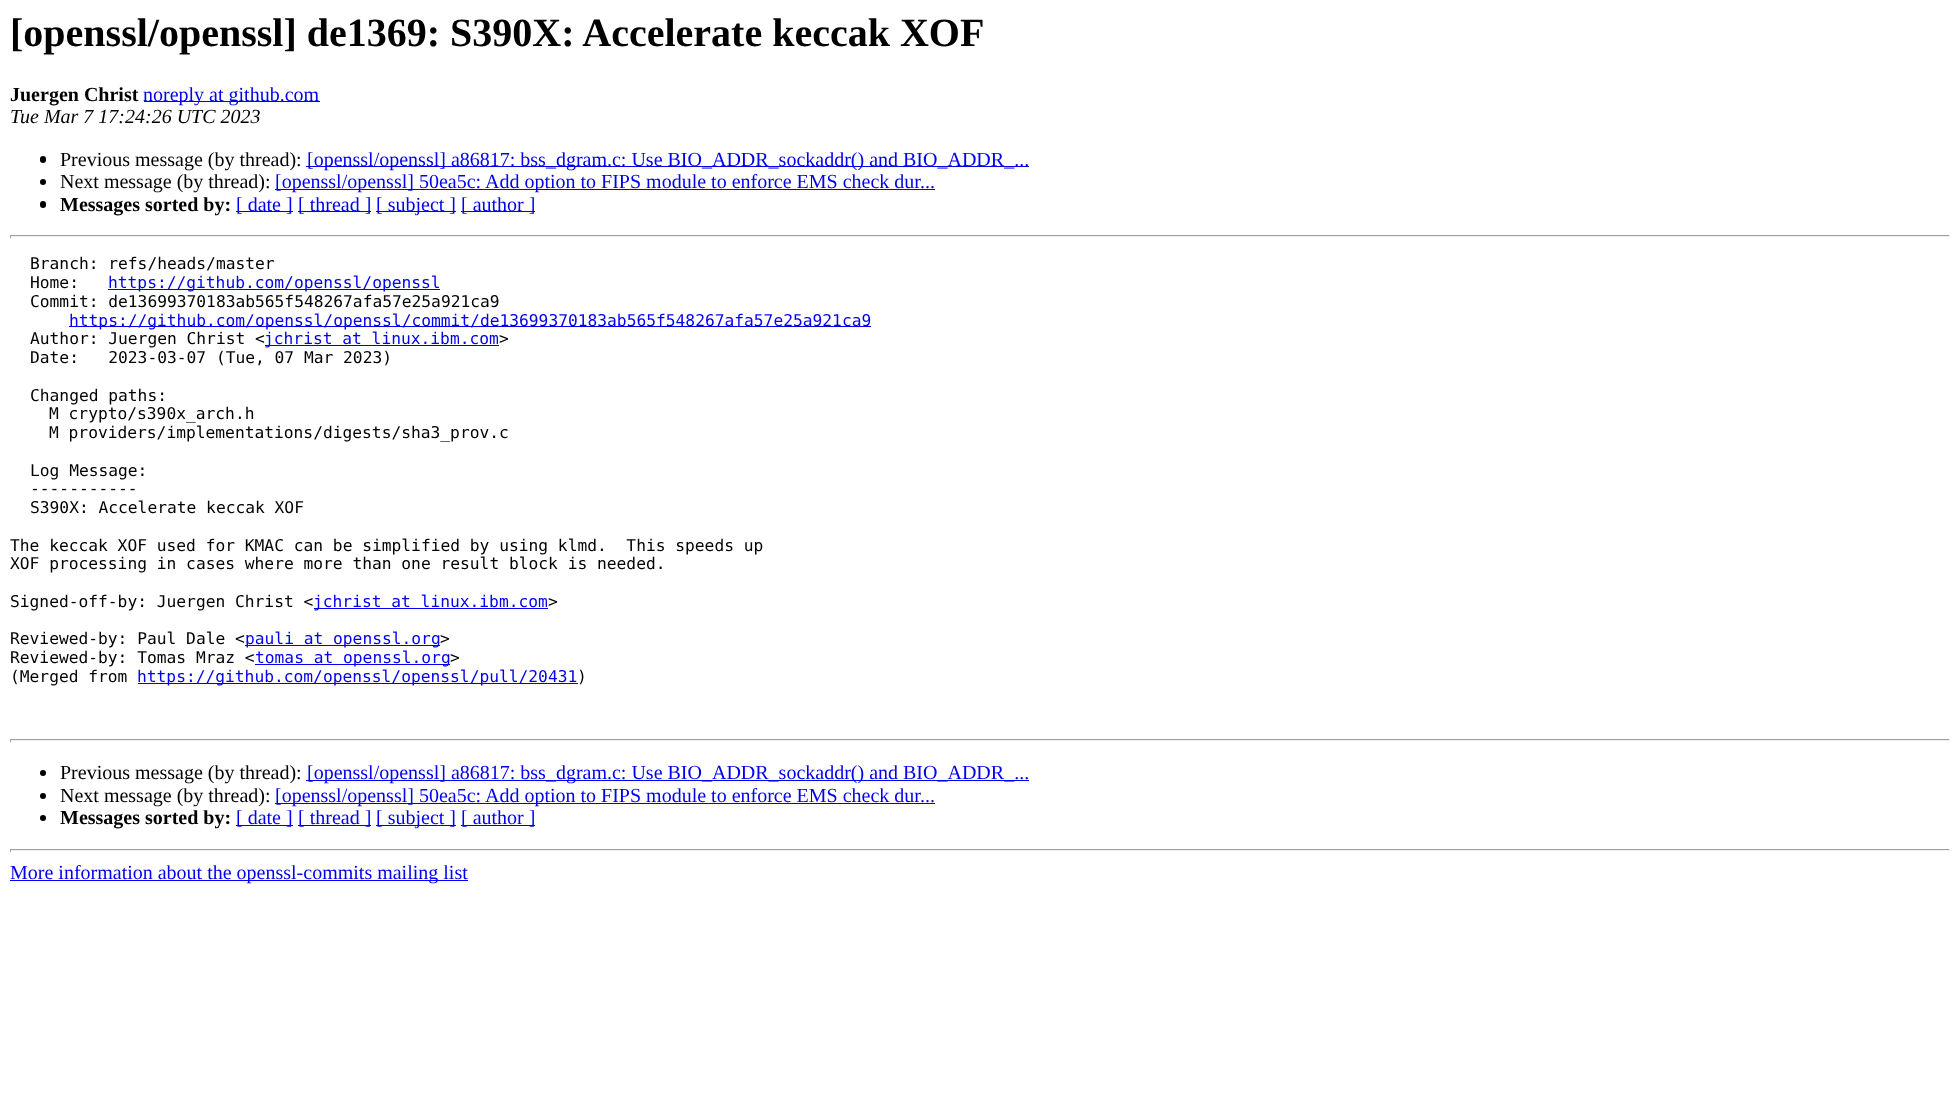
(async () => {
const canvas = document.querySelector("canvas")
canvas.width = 1959
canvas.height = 1120
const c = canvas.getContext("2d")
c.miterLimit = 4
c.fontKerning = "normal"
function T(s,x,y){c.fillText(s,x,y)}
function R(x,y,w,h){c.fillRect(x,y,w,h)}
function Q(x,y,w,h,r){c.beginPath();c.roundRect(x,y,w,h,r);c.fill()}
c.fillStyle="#fff"
R(0,0,1959,1120)
c.font="bold 40px Liberation Serif"
c.fillStyle="#000"
T("[openssl/openssl] de1369: S390X: Accelerate keccak XOF",10,46)
c.font="bold 20px Liberation Serif"
T("Juergen Christ",10,101)
c.fillStyle="#00e"
R(144,101,176,1)
c.font="20px Liberation Serif"
T("noreply at github.com",143,101)
c.font="italic 20px Liberation Serif"
c.fillStyle="#000"
T("Tue Mar 7 17:24:26 UTC 2023",10,123)
Q(40,156,6,7,3)
c.font="20px Liberation Serif"
T("Previous message (by thread):",60,166)
c.fillStyle="#00e"
R(306,166,723,1)
T("[openssl/openssl] a86817: bss_dgram.c: Use BIO_ADDR_sockaddr() and BIO_ADDR_...",307,166)
c.fillStyle="#000"
c.beginPath()
c.arc(43,182,3,0,7)
c.fill()
T("Next message (by thread):",60,188)
c.fillStyle="#00e"
R(275,189,660,1)
T("[openssl/openssl] 50ea5c: Add option to FIPS module to enforce EMS check dur...",275,188)
c.fillStyle="#000"
Q(40,201,6,7,3)
c.font="bold 20px Liberation Serif"
T("Messages sorted by:",60,211)
c.fillStyle="#00e"
R(236,211,57,1)
c.font="20px Liberation Serif"
T("[ date ]",236,211)
R(298,211,73,1)
T("[ thread ]",298,211)
R(376,211,80,1)
T("[ subject ]",376,211)
R(461,211,74,1)
T("[ author ]",461,211)
c.fillStyle="#9f9f9f"
R(10,235,1940,1)
c.fillStyle="#eee"
R(1949,235,1,3)
R(10,236,1940,1)
c.fillStyle="#9f9f9f"
R(10,235,1,3)
c.font="16.25px DejaVu Sans Mono"
c.fillStyle="#000"
T("Branch: refs/heads/master",30,269)
T("Home:",30,288)
c.fillStyle="#00e"
R(108,289,332,1)
T("https://github.com/openssl/openssl",108,288)
c.fillStyle="#000"
T("Commit: de13699370183ab565f548267afa57e25a921ca9",30,307)
c.fillStyle="#00e"
R(69,326,802,1)
T("https://github.com/openssl/openssl/commit/de13699370183ab565f548267afa57e25a921ca9",69,326)
c.fillStyle="#000"
T("Author: Juergen Christ <",30,344)
c.fillStyle="#00e"
R(265,345,234,1)
T("jchrist at linux.ibm.com",264,344)
c.fillStyle="#000"
T(">",499,344)
T("Date:   2023-03-07 (Tue, 07 Mar 2023)",30,363)
T("Changed paths:",30,401)
T("M crypto/s390x_arch.h",49,419)
T("M providers/implementations/digests/sha3_prov.c",49,438)
T("Log Message:",30,476)
T("-----------",30,494)
T("S390X: Accelerate keccak XOF",30,513)
T("The keccak XOF used for KMAC can be simplified by using klmd.  This speeds up",10,551)
T("XOF processing in cases where more than one result block is needed.",10,569)
T("Signed-off-by: Juergen Christ <",10,607)
c.fillStyle="#00e"
R(314,608,234,1)
T("jchrist at linux.ibm.com",313,607)
c.fillStyle="#000"
T(">",548,607)
T("Reviewed-by: Paul Dale <",10,644)
c.fillStyle="#00e"
R(245,645,195,1)
T("pauli at openssl.org",245,644)
c.fillStyle="#000"
T(">",440,644)
T("Reviewed-by: Tomas Mraz <",10,663)
c.fillStyle="#00e"
R(255,664,195,1)
T("tomas at openssl.org",255,663)
c.fillStyle="#000"
T(">",450,663)
T("(Merged from",10,682)
c.fillStyle="#00e"
R(138,683,440,1)
T("https://github.com/openssl/openssl/pull/20431",137,682)
c.fillStyle="#000"
T(")",577,682)
c.fillStyle="#9f9f9f"
R(10,739,1940,1)
c.fillStyle="#eee"
R(1949,739,1,3)
R(10,740,1940,1)
c.fillStyle="#9f9f9f"
R(10,739,1,3)
c.fillStyle="#000"
c.beginPath()
c.arc(43,773,3,0,7)
c.fill()
c.font="20px Liberation Serif"
T("Previous message (by thread):",60,779)
c.fillStyle="#00e"
R(306,780,723,1)
T("[openssl/openssl] a86817: bss_dgram.c: Use BIO_ADDR_sockaddr() and BIO_ADDR_...",307,779)
c.fillStyle="#000"
c.beginPath()
c.arc(43,796,3,0,7)
c.fill()
T("Next message (by thread):",60,802)
c.fillStyle="#00e"
R(275,803,660,1)
T("[openssl/openssl] 50ea5c: Add option to FIPS module to enforce EMS check dur...",275,802)
c.fillStyle="#000"
c.beginPath()
c.arc(43,818,3,0,7)
c.fill()
c.font="bold 20px Liberation Serif"
T("Messages sorted by:",60,824)
c.fillStyle="#00e"
R(236,825,57,1)
c.font="20px Liberation Serif"
T("[ date ]",236,824)
R(298,825,73,1)
T("[ thread ]",298,824)
R(376,825,80,1)
T("[ subject ]",376,824)
R(461,825,74,1)
T("[ author ]",461,824)
c.fillStyle="#9f9f9f"
R(10,849,1940,1)
c.fillStyle="#eee"
R(1949,849,1,3)
R(10,850,1940,1)
c.fillStyle="#9f9f9f"
R(10,849,1,3)
c.fillStyle="#00e"
R(10,880,458,1)
T("More information about the openssl-commits mailing list",10,879)
})()
